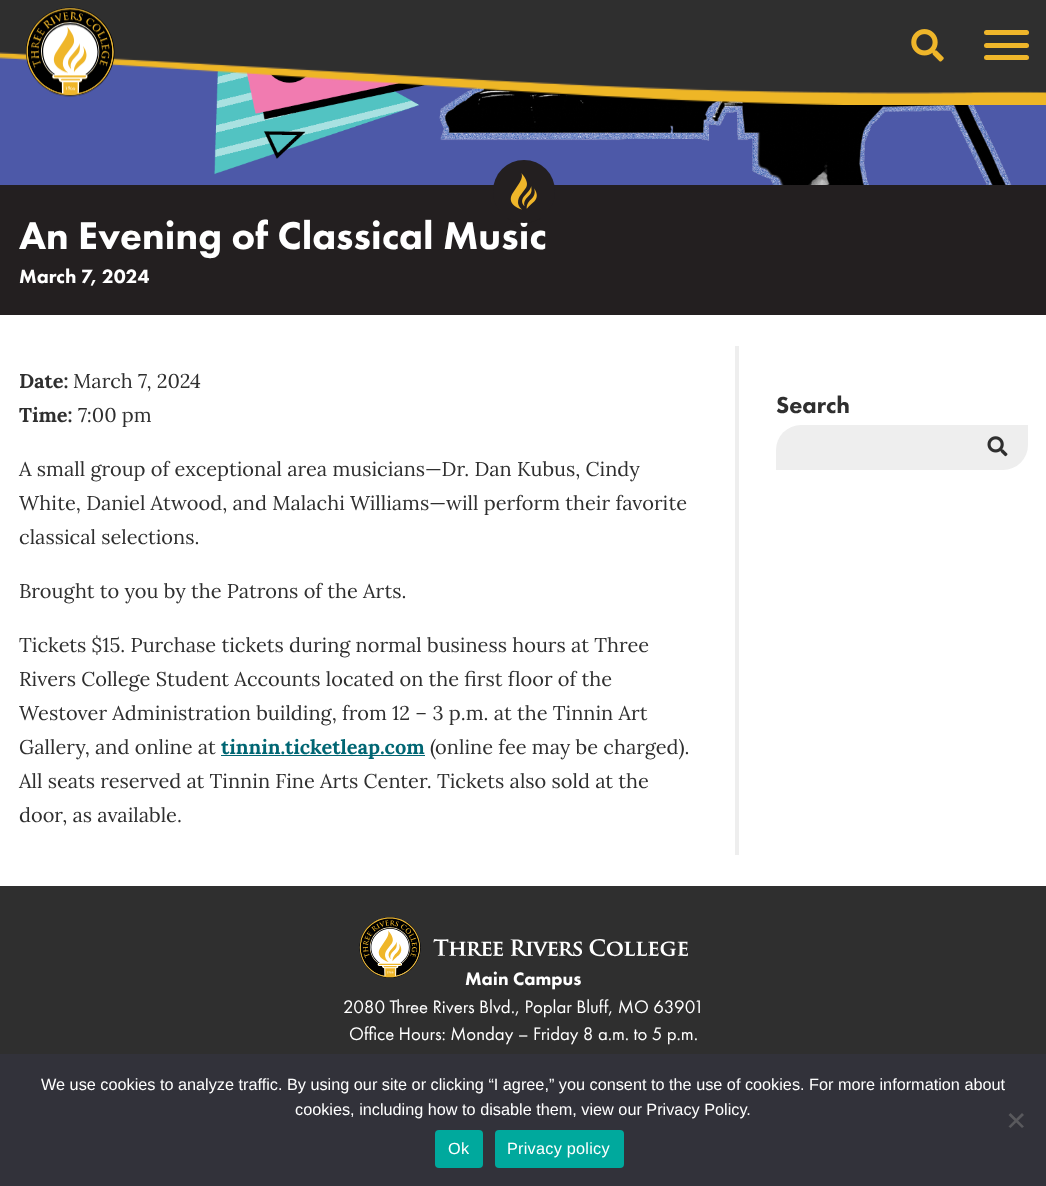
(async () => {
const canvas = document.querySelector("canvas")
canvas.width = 1046
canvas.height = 1186
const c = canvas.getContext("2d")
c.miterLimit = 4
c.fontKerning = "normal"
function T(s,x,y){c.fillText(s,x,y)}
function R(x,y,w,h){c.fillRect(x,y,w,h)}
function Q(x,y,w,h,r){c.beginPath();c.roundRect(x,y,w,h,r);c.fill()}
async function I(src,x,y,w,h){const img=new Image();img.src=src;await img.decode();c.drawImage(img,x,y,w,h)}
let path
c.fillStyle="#fff"
R(0,0,1046,1186)
await I("4.png",0,57,1046,128)
await I("1.png",0,0,1046,105)
await I("2.png",26,7,89,90)
await I("3.png",911,29,33,33)
c.fillStyle="#efb62a"
Q(984,30,45,5,2.5)
Q(984,43,45,5,2.5)
Q(984,55,45,5,2.5)
c.fillStyle="#231f20"
R(0,185,1046,130)
c.font="900 40px Futura PT"
c.fillStyle="#fff"
T("An Evening of Classical Music",19,249)
c.fillStyle="#231f20"
Q(493,160,62,63,31)
await I("5.png",510,173,27,37)
c.font="900 20px Futura PT"
c.fillStyle="#fff"
T("March 7, 2024",19,283)
c.font="bold 20px Lora"
c.fillStyle="#2f2f2f"
T("Date:",19,388)
c.font="20px Lora"
T("March 7, 2024",73,388)
c.font="bold 20px Lora"
T("Time:",19,422)
c.font="20px Lora"
T("7:00 pm",78,422)
T("A small group of exceptional area musicians—Dr. Dan Kubus, Cindy",19,476)
T("White, Daniel Atwood, and Malachi Williams—will perform their favorite",19,510)
T("classical selections.",19,544)
T("Brought to you by the Patrons of the Arts.",19,598)
T("Tickets $15. Purchase tickets during normal business hours at Three",19,652)
T("Rivers College Student Accounts located on the first floor of the",19,686)
T("Westover Administration building, from 12 – 3 p.m. at the Tinnin Art",19,720)
T("Gallery, and online at",19,754)
c.fillStyle="#006673"
R(221,755,204,1)
c.font="bold 20px Lora"
T("tinnin.ticketleap.com",221,754)
c.font="20px Lora"
c.fillStyle="#2f2f2f"
T("(online fee may be charged).",430,754)
T("All seats reserved at Tinnin Fine Arts Center. Tickets also sold at the",19,788)
T("door, as available.",19,822)
c.fillStyle="#eee"
R(735,346,4,509)
c.font="900 24px Futura PT"
c.fillStyle="#2f2f2f"
T("Search",776,413)
c.fillStyle="#eee"
c.beginPath()
c.roundRect(776,425,252,45,[25,0,25,0])
c.fill()
await I("6.png",987,436,21,21)
c.fillStyle="#2f2f2f"
R(0,886,1046,168)
c.font="900 18.75px Futura PT"
c.fillStyle="#fff"
T("Main Campus",465,985)
await I("7.png",359,917,329,61)
c.font="18.75px Futura PT"
T("2080 Three Rivers Blvd., Poplar Bluff, MO 63901",343,1013)
T("Office Hours: Monday – Friday 8 a.m. to 5 p.m.",349,1040)
c.fillStyle="#32323a"
R(0,1054,1046,132)
c.font="16.25px Liberation Sans"
c.fillStyle="#fff"
T("We use cookies to analyze traffic. By using our site or clicking “I agree,” you consent to the use of cookies. For more information about",41,1090)
T("cookies, including how to disable them, view our Privacy Policy.",295,1115)
c.fillStyle="#59595d"
path = new Path2D("M1022 1113l2 2l-13.5 13l-2-1.5z")
c.fill(path)
path = new Path2D("M1008.5 1115l2-2l13.5 13.5l-2 1.5z")
c.fill(path)
c.fillStyle="#00a99d"
Q(435,1130,48,38,4)
c.letterSpacing="0.25px"
c.fillStyle="#fff"
T("Ok",448,1154)
c.fillStyle="#00a99d"
Q(495,1130,129,38,4)
c.fillStyle="#fff"
T("Privacy policy",507,1154)
})()
